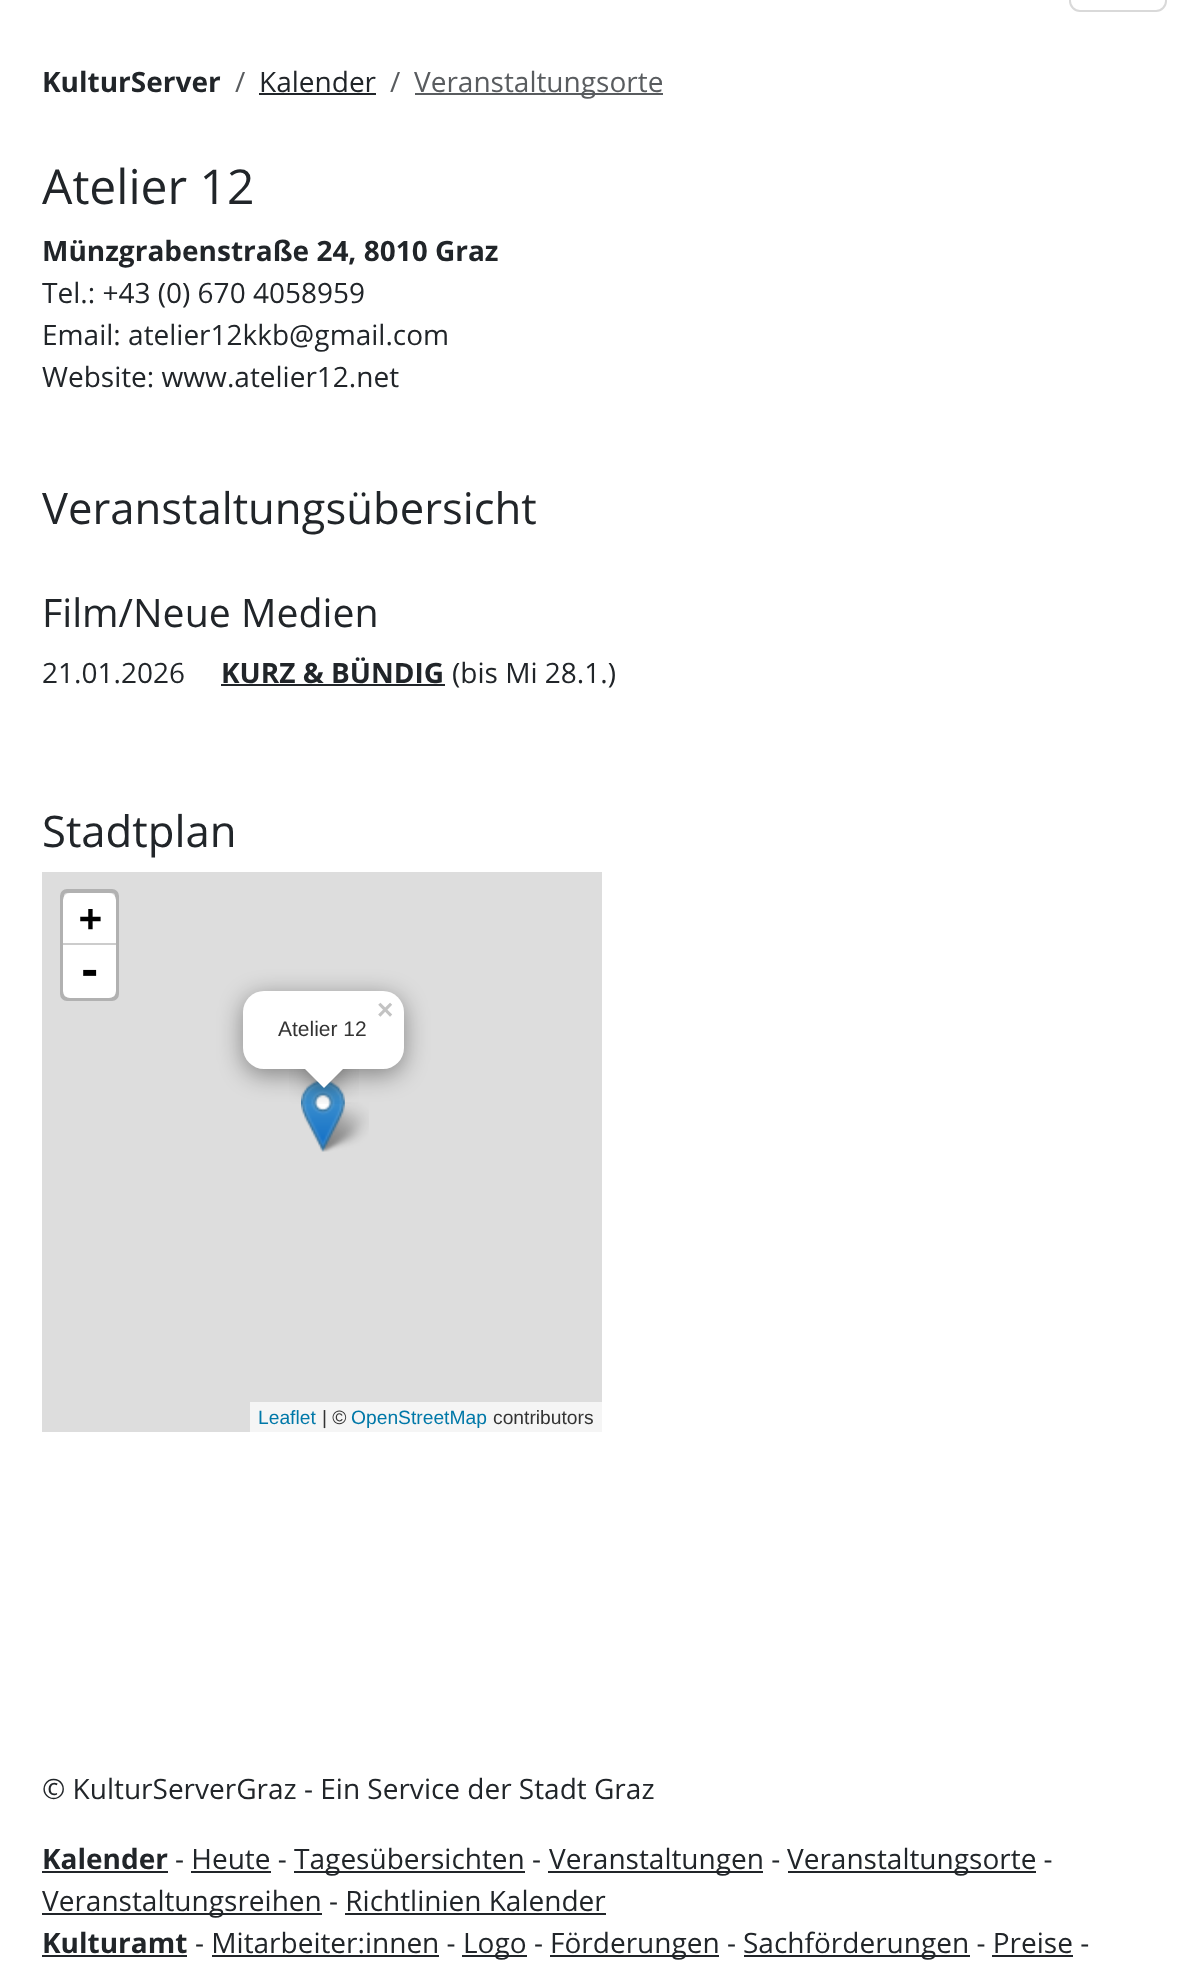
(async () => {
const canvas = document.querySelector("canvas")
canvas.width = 1201
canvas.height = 1963
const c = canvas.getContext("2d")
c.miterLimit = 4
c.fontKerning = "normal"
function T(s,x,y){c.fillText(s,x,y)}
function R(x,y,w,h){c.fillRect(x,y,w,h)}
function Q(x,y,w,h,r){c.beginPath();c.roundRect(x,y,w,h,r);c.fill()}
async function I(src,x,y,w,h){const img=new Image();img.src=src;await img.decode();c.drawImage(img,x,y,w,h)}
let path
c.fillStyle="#fff"
R(0,0,1201,1963)
c.beginPath()
c.roundRect(1070,-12,96,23,10)
c.strokeStyle="#d9d9d9"
c.lineWidth=2
c.stroke()
c.font="bold 28px Open Sans"
c.fillStyle="#212529"
T("KulturServer",42,92)
c.font="28px Open Sans"
c.fillStyle="#595c5f"
T("/",235,92)
c.fillStyle="#212529"
T("Kalender",259,92)
R(259,93,117,2)
c.fillStyle="#595c5f"
T("/",390,92)
R(415,93,248,2)
T("Veranstaltungsorte",414,92)
c.font="48px Open Sans"
c.fillStyle="#212529"
T("Atelier 12",42,204)
c.font="bold 28px Open Sans"
T("Münzgrabenstraße 24, 8010 Graz",42,261)
c.font="28px Open Sans"
T("Tel.: +43 (0) 670 4058959",42,303)
T("Email: atelier12kkb@gmail.com",42,345)
T("Website: www.atelier12.net",42,387)
c.font="43.6px Open Sans"
T("Veranstaltungsübersicht",42,524)
c.font="39.25px Open Sans"
T("Film/Neue Medien",42,627)
c.font="28px Open Sans"
T("21.01.2026",42,683)
c.font="bold 28px Open Sans"
T("KURZ & BÜNDIG",221,683)
R(221,684,224,2)
c.font="28px Open Sans"
T("(bis Mi 28.1.)",452,683)
c.font="43.6px Open Sans"
T("Stadtplan",42,847)
c.fillStyle="#ddd"
R(42,872,560,560)
c.beginPath()
c.roundRect(62,891,55,108,5)
c.strokeStyle="#b1b1b1"
c.lineWidth=4
c.stroke()
c.fillStyle="#fff"
c.beginPath()
c.roundRect(63,893,53,52,[7,7,0,0])
c.fill()
c.fillStyle="#ccc"
R(63,943,53,2)
c.font="bold 38px DejaVu Sans Mono"
c.fillStyle="#000"
T("+",79,931)
c.fillStyle="#fff"
c.beginPath()
c.roundRect(63,945,53,53,[0,0,7,7])
c.fill()
c.font="bold 42px DejaVu Sans Mono"
c.fillStyle="#000"
T("-",77,985)
c.fillStyle="#f5f5f5"
R(250,1402,352,30)
c.font="19.25px Liberation Sans"
c.fillStyle="#0078a8"
T("Leaflet",258,1424)
c.fillStyle="#333"
T("| ©",322,1424)
c.fillStyle="#0078a8"
T("OpenStreetMap",351,1424)
c.fillStyle="#333"
T("contributors",493,1424)
await I("2.png",317,1102,52,50)
await I("1.png",301,1080,44,72)
c.fillStyle="#00000066"
c.filter="blur(12px)"
c.beginPath()
c.roundRect(243,996,161,79,21)
c.fill()
c.filter="none"
c.fillStyle="#fff"
Q(243,991,161,78,21)
c.font="bold 28px Liberation Sans"
c.fillStyle="#c3c3c3"
T("×",377,1019)
c.save()
c.beginPath()
c.rect(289,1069,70,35)
c.clip()
c.fillStyle="#00000066"
c.filter="blur(12.5px)"
c.beginPath()
c.rect(310,1057,30,30)
c.fill()
c.filter="none"
c.restore()
c.save()
c.beginPath()
c.rect(289,1069,70,35)
c.clip()
c.fillStyle="#fff"
path = new Path2D("M324 1046l21 21l-21 21l-21-21z")
c.fill(path)
c.restore()
c.font="21px Liberation Sans"
c.fillStyle="#333"
T("Atelier 12",278,1036)
c.font="28px Open Sans"
c.fillStyle="#212529"
T("© KulturServerGraz - Ein Service der Stadt Graz",42,1799)
c.font="bold 28px Open Sans"
T("Kalender",42,1869)
R(42,1871,126,2)
c.font="28px Open Sans"
T("- Heute -",175,1869)
R(294,1871,231,2)
T("Tagesübersichten -",294,1869)
R(191,1871,80,2)
R(548,1871,215,2)
T("Veranstaltungen -",549,1869)
R(788,1871,248,2)
T("Veranstaltungsorte -",787,1869)
R(42,1913,280,2)
T("Veranstaltungsreihen - Richtlinien Kalender",42,1911)
R(345,1913,261,2)
c.font="bold 28px Open Sans"
T("Kulturamt",42,1953)
R(42,1955,145,2)
c.font="28px Open Sans"
T("- Mitarbeiter:innen -",195,1953)
R(462,1955,65,2)
T("Logo -",463,1953)
R(212,1955,227,2)
R(550,1955,169,2)
T("Förderungen -",550,1953)
R(744,1955,226,2)
T("Sachförderungen - Preise -",743,1953)
R(992,1955,81,2)
})()
